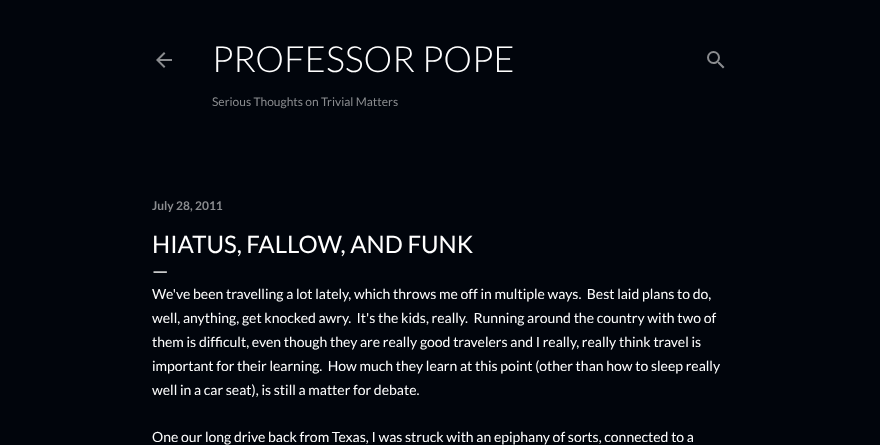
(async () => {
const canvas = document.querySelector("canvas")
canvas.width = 880
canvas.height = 445
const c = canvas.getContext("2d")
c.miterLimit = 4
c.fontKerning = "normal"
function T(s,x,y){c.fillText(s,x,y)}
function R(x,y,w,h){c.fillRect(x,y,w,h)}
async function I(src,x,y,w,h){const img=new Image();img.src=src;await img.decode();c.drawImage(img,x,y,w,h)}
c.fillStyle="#01050c"
R(0,0,880,445)
await I("1.png",156,52,16,16)
c.font="300 36px Lato"
c.fillStyle="#fff"
T("PROFESSOR POPE",212,72)
c.font="12px Lato"
c.fillStyle="#8a8c8f"
T("Serious Thoughts on Trivial Matters",212,106)
await I("2.png",707,51,18,18)
c.font="bold 12px Lato"
T("July 28, 2011",152,210)
c.font="24px Lato"
c.fillStyle="#fff"
T("HIATUS, FALLOW, AND FUNK",152,253)
c.font="20px Lato"
T("—",152,278)
c.font="14px Lato"
T("We've been travelling a lot lately, which throws me off in multiple ways.  Best laid plans to do,",152,299)
T("well, anything, get knocked awry.  It's the kids, really.  Running around the country with two of",152,323)
T("them is difficult, even though they are really good travelers and I really, really think travel is",152,347)
T("important for their learning.  How much they learn at this point (other than how to sleep really",152,371)
T("well in a car seat), is still a matter for debate.",152,395)
T("One our long drive back from Texas, I was struck with an epiphany of sorts, connected to a",152,442)
})()
